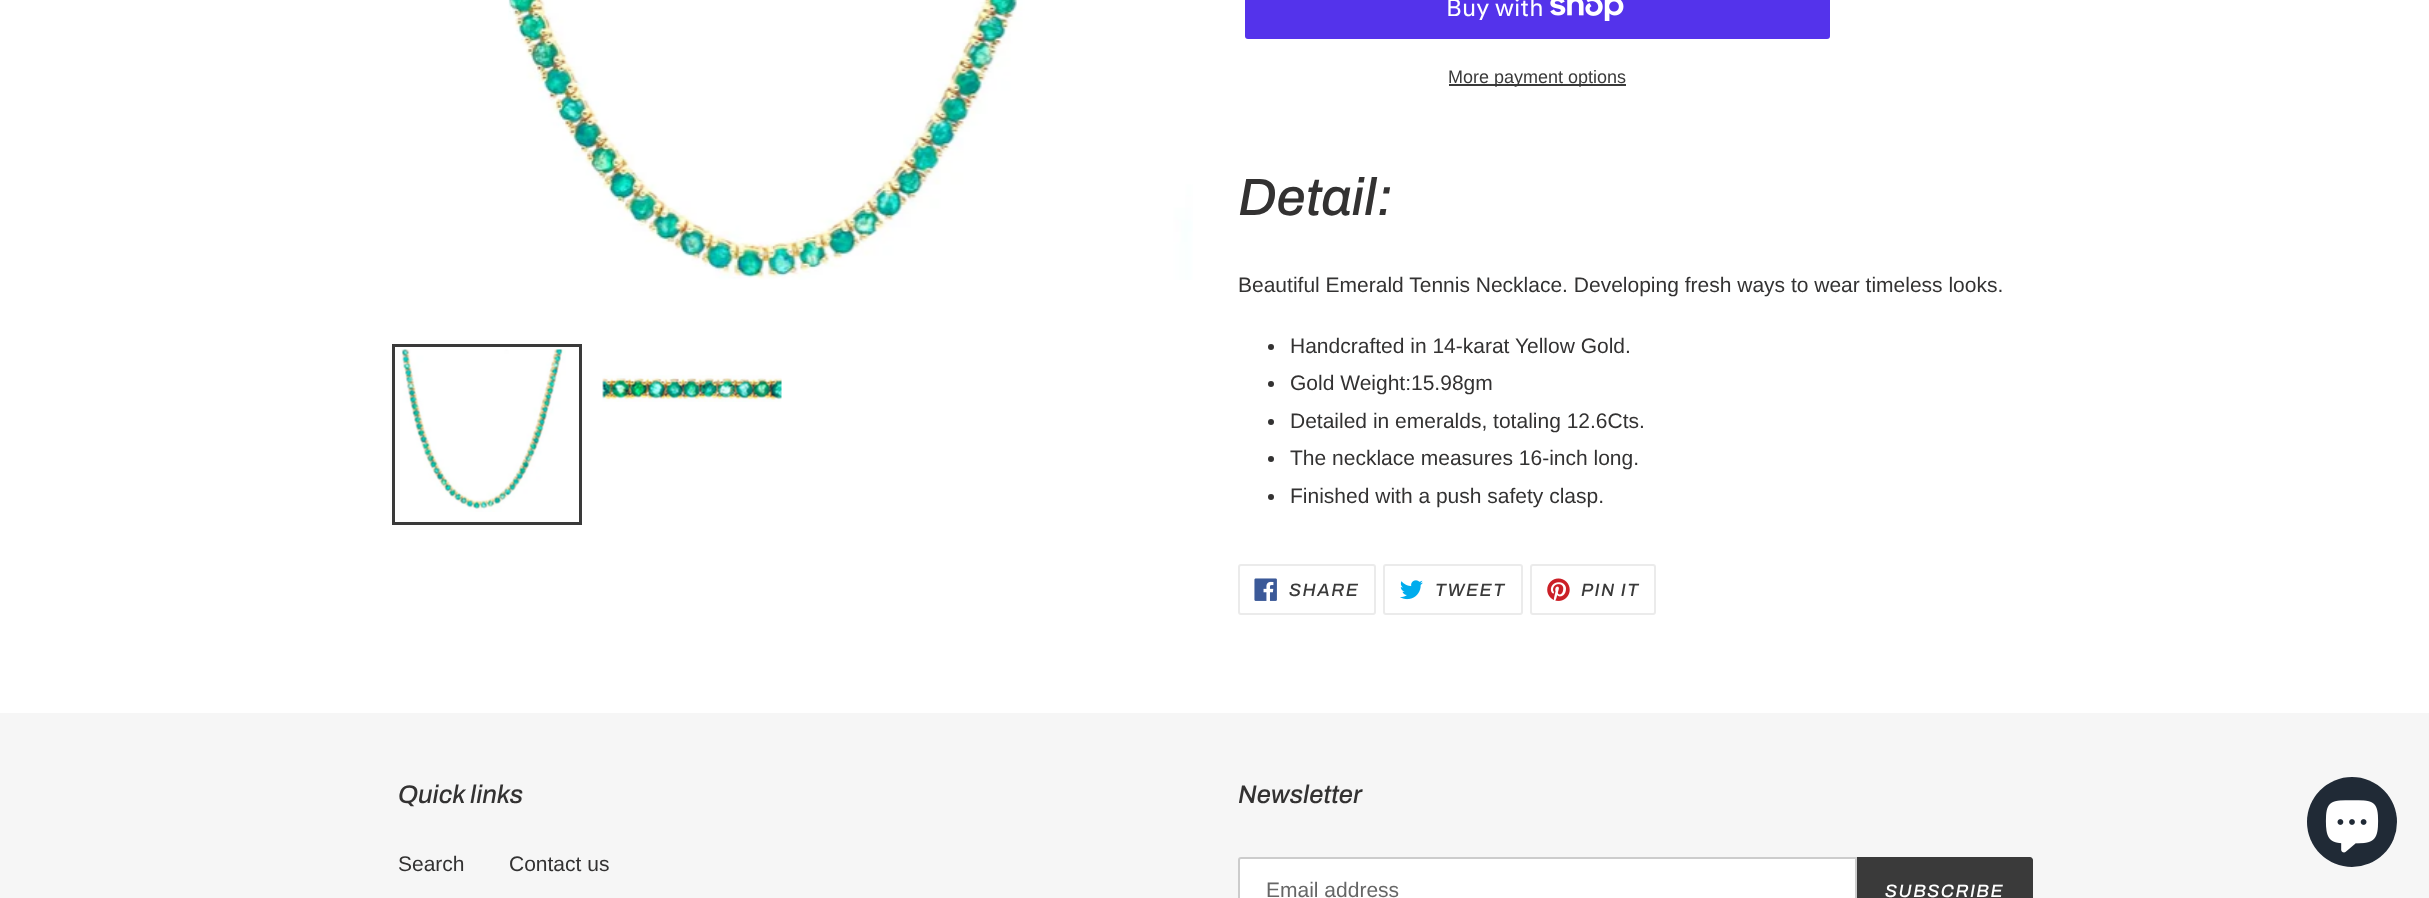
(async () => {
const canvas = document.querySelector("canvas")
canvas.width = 2429
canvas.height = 898
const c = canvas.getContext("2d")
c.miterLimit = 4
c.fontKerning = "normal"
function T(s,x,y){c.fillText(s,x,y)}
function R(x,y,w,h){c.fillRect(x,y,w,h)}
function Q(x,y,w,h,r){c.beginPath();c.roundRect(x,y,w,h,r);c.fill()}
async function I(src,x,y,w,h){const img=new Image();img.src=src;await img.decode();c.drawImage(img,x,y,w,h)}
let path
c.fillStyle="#fff"
R(0,0,2429,898)
await I("1.png",508,0,685,280)
c.strokeStyle="#3a3a3a"
c.lineWidth=3
c.strokeRect(393.5,345.5,187,178)
await I("2.png",401,349,165,163)
await I("3.png",602,375,180,27)
c.fillStyle="#5433eb"
Q(1245,-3,585,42,3)
c.font="24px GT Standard"
c.fillStyle="#fff"
T("Buy with",1446,16)
await I("4.png",1550,0,74,21)
c.fillStyle="#3a3a3a"
R(1449,84,177,2)
c.font="18px Liberation Sans"
T("More payment options",1448,83)
c.font="italic 500 52.5px Archivo"
c.fillStyle="#333232"
T("Detail:",1238,215)
c.font="21px Liberation Sans"
T("Beautiful Emerald Tennis Necklace. Developing fresh ways to wear timeless looks.",1238,292)
c.beginPath()
c.arc(1271,347,3,0,7)
c.fill()
T("Handcrafted in 14-karat Yellow Gold.",1290,353)
c.beginPath()
c.arc(1271,384,3,0,7)
c.fill()
T("Gold Weight:15.98gm",1290,390)
c.beginPath()
c.arc(1271,422,3,0,7)
c.fill()
T("Detailed in emeralds, totaling 12.6Cts.",1290,428)
c.beginPath()
c.arc(1271,459,3,0,7)
c.fill()
T("The necklace measures 16-inch long.",1290,465)
c.beginPath()
c.arc(1271,497,3,0,7)
c.fill()
T("Finished with a push safety clasp.",1290,503)
c.beginPath()
c.roundRect(1239,565,136,49,2)
c.strokeStyle="#ebebeb"
c.lineWidth=2
c.stroke()
await I("5.png",1254,578,23,23)
c.letterSpacing="1.5px"
c.font="italic 500 18px Archivo"
c.fillStyle="#3a3a3a"
T("SHARE",1289,596)
c.beginPath()
c.roundRect(1384,565,138,49,2)
c.stroke()
await I("6.png",1400,580,23,20)
T("TWEET",1435,596)
c.beginPath()
c.roundRect(1531,565,124,49,2)
c.stroke()
await I("7.png",1547,578,23,23)
T("PIN IT",1581,596)
c.fillStyle="#f6f6f6"
R(0,713,2429,185)
c.letterSpacing="0px"
c.font="italic 500 25.5px Archivo"
c.fillStyle="#333232"
T("Quick links",398,803)
c.font="21px Liberation Sans"
T("Search",398,871)
T("Contact us",509,871)
c.font="italic 500 25.5px Archivo"
T("Newsletter",1238,803)
c.fillStyle="#fff"
path = new Path2D("M1241 858h615v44h-615c-1 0-2-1-2-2v-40c0-1 1-2 2-2z")
c.fill(path)
c.strokeStyle="#ccc"
c.stroke(path)
c.font="21px Liberation Sans"
c.fillStyle="#666"
T("Email address",1266,897)
c.fillStyle="#3a3a3a"
path = new Path2D("M1857 857h173c1.5 0 3 1.5 3 3v38c0 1.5-1.5 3-3 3h-173z")
c.fill(path)
c.letterSpacing="1.5px"
c.font="italic 500 18px Archivo"
c.fillStyle="#fff"
T("SUBSCRIBE",1885,897)
c.fillStyle="#202a36"
c.beginPath()
c.arc(2352,822,45,0,7)
c.fill()
await I("8.png",2325,800,54,53)
})()
